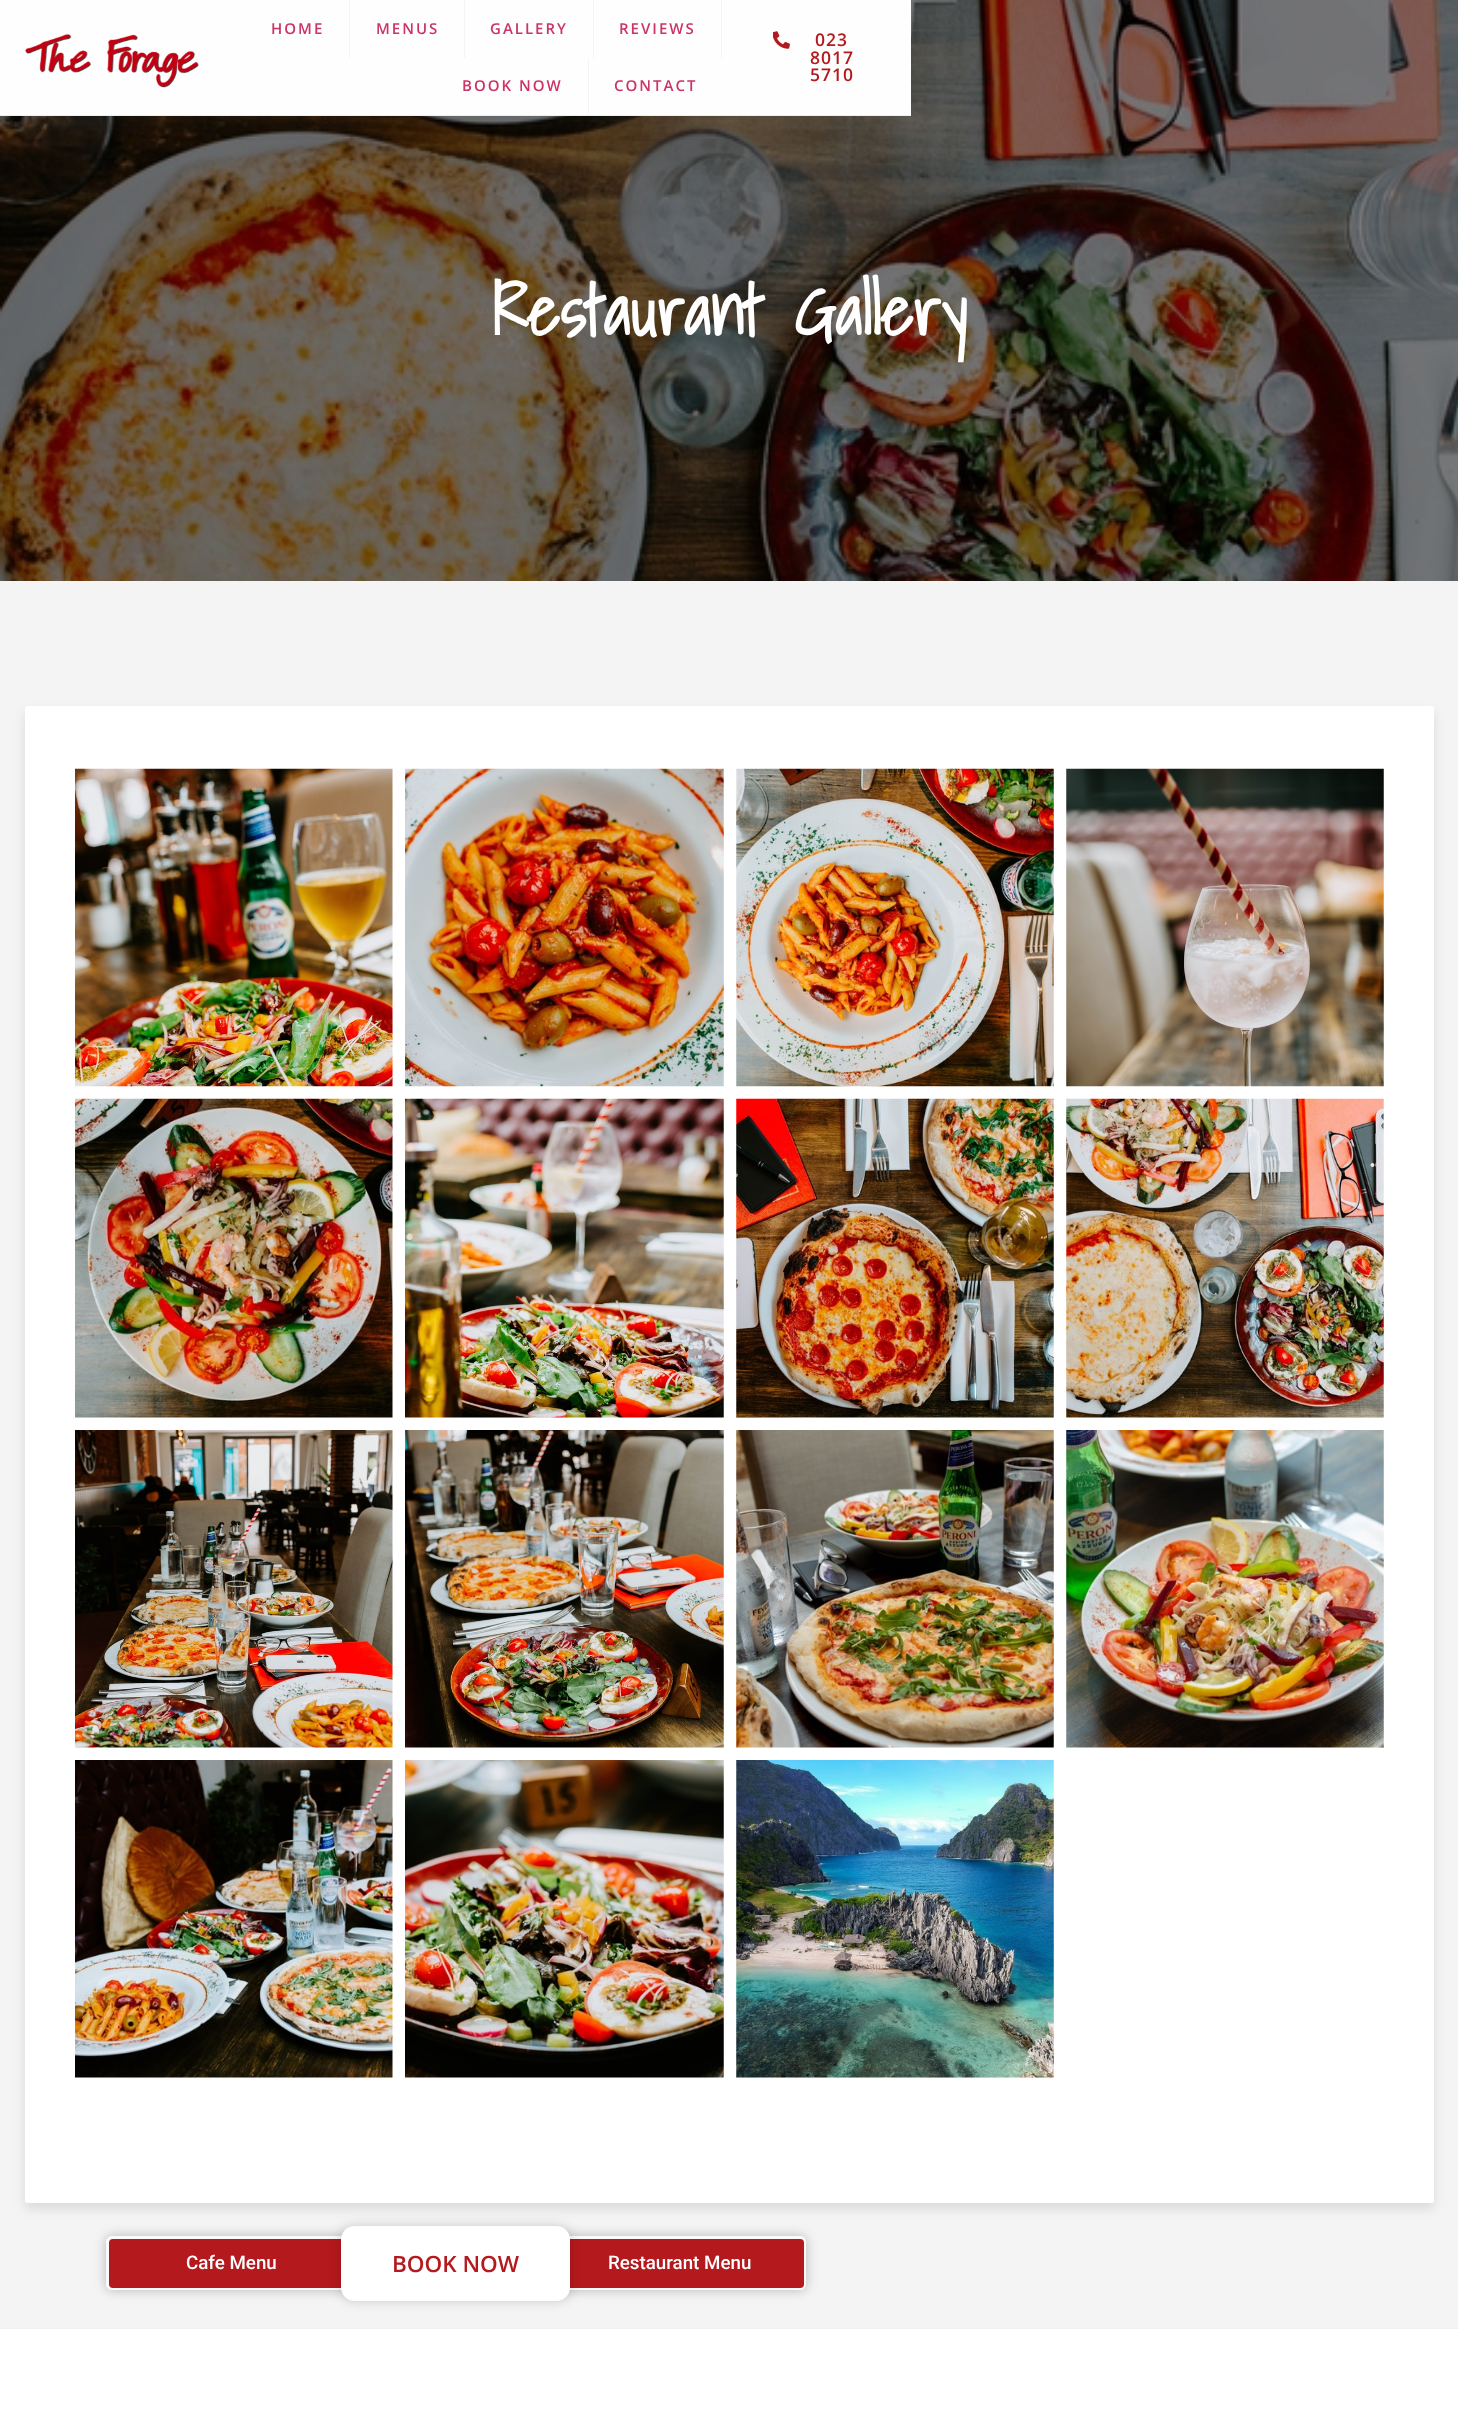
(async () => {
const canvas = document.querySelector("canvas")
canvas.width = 1458
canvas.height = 2415
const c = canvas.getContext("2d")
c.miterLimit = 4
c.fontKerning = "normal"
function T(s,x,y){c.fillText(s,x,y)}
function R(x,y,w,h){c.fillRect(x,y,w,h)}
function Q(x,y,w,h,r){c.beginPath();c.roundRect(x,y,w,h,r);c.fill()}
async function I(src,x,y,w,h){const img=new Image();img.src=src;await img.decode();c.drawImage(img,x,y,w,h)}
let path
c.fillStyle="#fff"
R(0,0,1458,2415)
await I("3.png",0,0,1458,581)
c.fillStyle="#5a5a5a26"
c.filter="blur(12.5px)"
c.beginPath()
c.rect(0,0,911,116)
c.fill()
c.filter="none"
c.fillStyle="#fefefe"
R(0,0,911,115)
c.fillStyle="#efefef"
R(0,115,911,1)
await I("1.png",25,34,174,54)
c.letterSpacing="2px"
c.font="600 15px Open Sans"
c.fillStyle="#c36"
T("HOME",271,34)
c.fillStyle="#f4f4f4"
R(349,0,1,58)
c.fillStyle="#c36"
T("MENUS",376,34)
c.fillStyle="#f4f4f4"
R(464,0,1,58)
c.fillStyle="#c36"
T("GALLERY",490,34)
c.fillStyle="#f4f4f4"
R(593,0,1,58)
c.fillStyle="#c36"
T("REVIEWS",619,34)
c.fillStyle="#f4f4f4"
R(721,0,1,58)
c.fillStyle="#c36"
T("BOOK NOW",462,91)
c.fillStyle="#f4f4f4"
R(588,58,1,57)
c.fillStyle="#c36"
T("CONTACT",614,91)
await I("2.png",773,31,17,18)
c.letterSpacing="1px"
c.font="600 17.5px Open Sans"
c.fillStyle="#b4191e"
T("023",815,46)
T("8017",810,64)
T("5710",810,81)
c.fillStyle="#f4f4f4"
R(0,581,1458,1747)
c.save()
path = new Path2D("M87 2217h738v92h-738zm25 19h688c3.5 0 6 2.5 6 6v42c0 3.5-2.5 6-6 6h-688c-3.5 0-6-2.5-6-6v-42c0-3.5 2.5-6 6-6z")
c.clip(path,"evenodd")
c.fillStyle="#00000040"
c.filter="blur(6px)"
c.beginPath()
c.roundRect(106,2236,700,54,6)
c.fill()
c.filter="none"
c.restore()
c.fillStyle="#ffffff80"
Q(106,2236,700,54,6)
c.fillStyle="#b4191e"
Q(109,2239,247,49,4)
c.letterSpacing="0px"
c.font="500 18.75px Roboto"
c.fillStyle="#fff"
T("Cafe Menu",186,2269)
c.fillStyle="#b4191e"
Q(556,2239,248,49,4)
c.fillStyle="#fff"
T("Restaurant Menu",608,2269)
c.fillStyle="#00000029"
c.filter="blur(6px)"
c.beginPath()
c.roundRect(341,2226,229,75,13)
c.fill()
c.filter="none"
c.fillStyle="#0000001a"
c.filter="blur(6px)"
c.beginPath()
c.roundRect(25,713,1409,1496,2.5)
c.fill()
c.filter="none"
c.fillStyle="#fff"
c.beginPath()
c.roundRect(341.5,2226.5,228,74,12.5)
c.fill()
c.strokeStyle="#fefefe"
c.stroke()
c.font="600 22.5px Open Sans"
c.fillStyle="#b4191e"
T("BOOK NOW",392,2272)
c.font="bold 70px Shadows Into Light"
c.fillStyle="#fff"
T("Restaurant Gallery",492,336)
Q(25,706,1409,1497,2.5)
await I("4.png",75,768,318,319)
await I("5.png",405,768,319,319)
await I("6.png",736,768,318,319)
await I("7.png",1066,768,318,319)
await I("8.png",75,1098,318,320)
await I("9.png",405,1098,319,320)
await I("10.png",736,1098,318,320)
await I("11.png",1066,1098,318,320)
await I("12.png",75,1430,318,318)
await I("13.png",405,1430,319,318)
await I("14.png",736,1430,318,318)
await I("15.png",1066,1430,318,318)
await I("16.png",75,1760,318,318)
await I("17.png",405,1760,319,318)
await I("18.png",736,1760,318,318)
c.fillStyle="#efefef"
R(0,2328,1458,1)
})()
